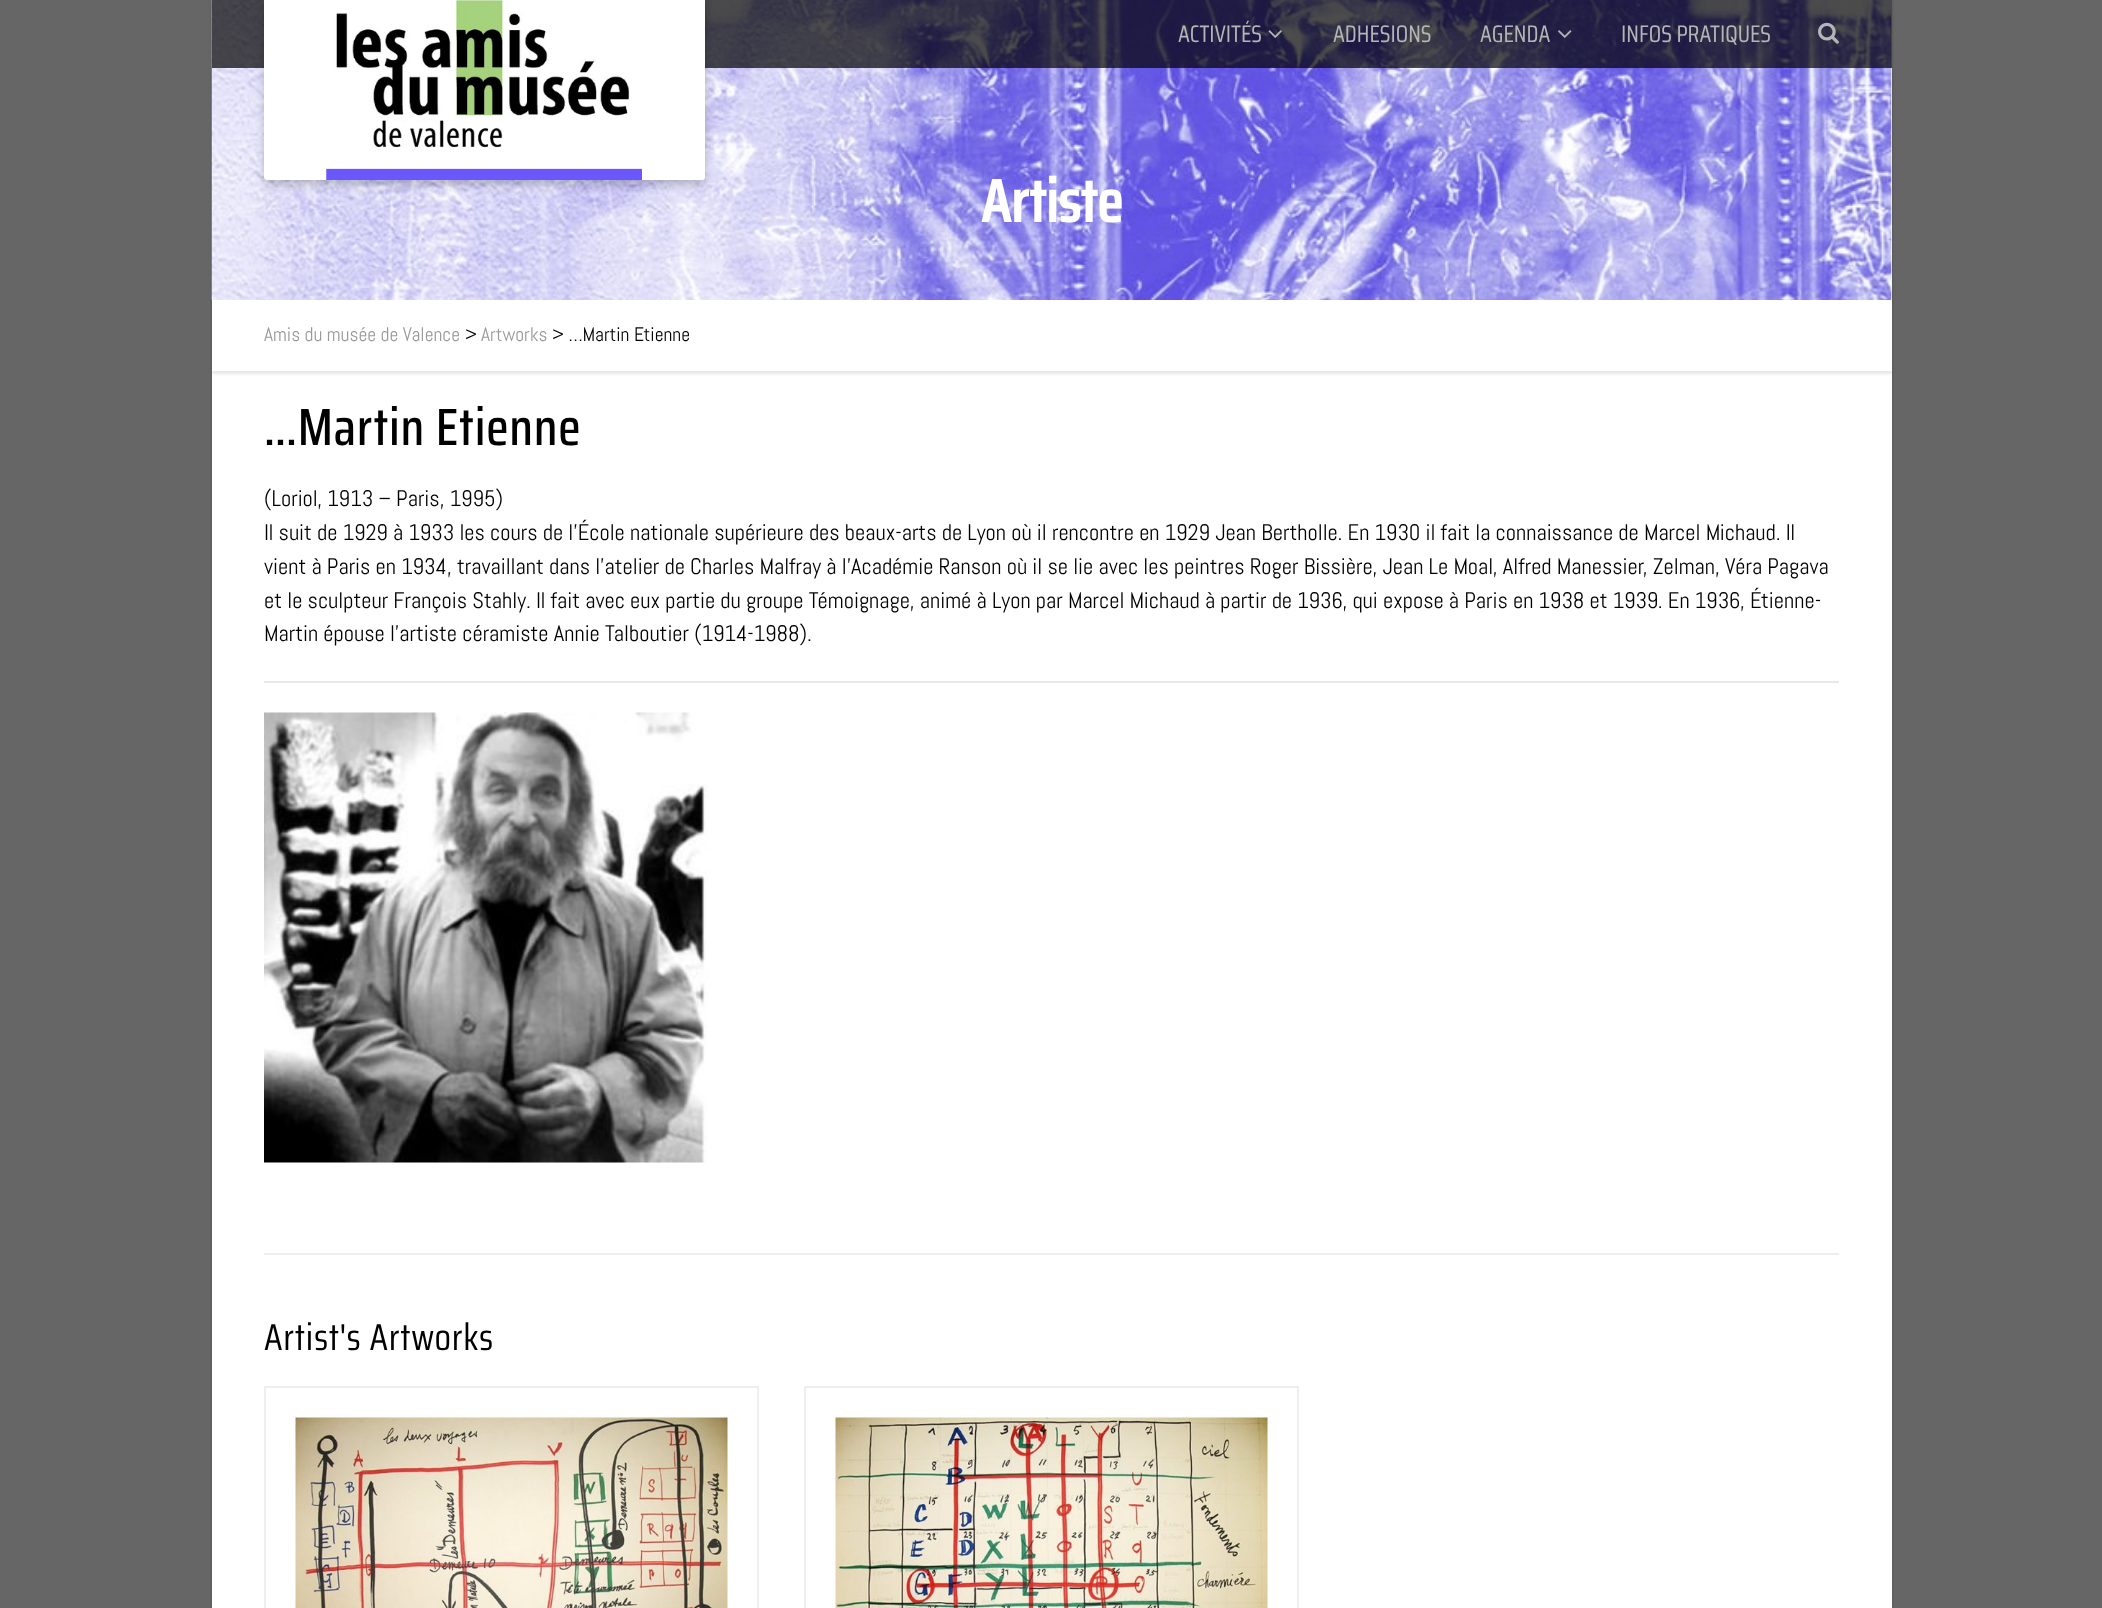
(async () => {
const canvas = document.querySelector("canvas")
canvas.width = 2102
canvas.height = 1608
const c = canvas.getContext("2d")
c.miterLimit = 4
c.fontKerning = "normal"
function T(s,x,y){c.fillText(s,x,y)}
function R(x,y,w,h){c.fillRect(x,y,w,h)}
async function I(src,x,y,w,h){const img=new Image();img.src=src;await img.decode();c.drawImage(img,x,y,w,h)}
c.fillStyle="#666"
R(0,0,2102,1608)
c.fillStyle="#00000033"
c.filter="blur(1.5px)"
c.beginPath()
c.rect(212,0,1680,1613)
c.fill()
c.filter="none"
c.fillStyle="#fff"
R(212,371,1680,1237)
c.save()
c.beginPath()
c.rect(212,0,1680,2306)
c.clip()
c.fillStyle="#e6e6e6"
c.filter="blur(1.5px)"
c.beginPath()
c.rect(212,303,1680,71)
c.fill()
c.filter="none"
c.restore()
c.fillStyle="#f8f8f8"
R(1891,0,1,300)
await I("5.png",211,0,1681,300)
c.fillStyle="#000000b3"
R(212,0,1680,68)
c.fillStyle="#00000033"
c.filter="blur(4px)"
c.beginPath()
c.roundRect(264,5,441,180,3)
c.fill()
c.filter="none"
c.fillStyle="#fff"
c.beginPath()
c.roundRect(264,0,441,180,[0,0,3,3])
c.fill()
await I("1.png",326,0,316,180)
c.font="24px Saira Condensed"
c.fillStyle="#b5b5b5"
T("ACTIVITÉS",1178,42)
await I("2.png",1268,30,14,8)
T("ADHESIONS",1333,42)
T("AGENDA",1480,42)
await I("3.png",1558,30,14,8)
T("INFOS PRATIQUES",1621,42)
await I("4.png",1818,22,21,22)
c.font="bold 60px Saira Condensed"
c.fillStyle="#fff"
T("Artiste",981,222)
R(212,300,1680,71)
c.font="19.5px Abel"
c.fillStyle="#999"
T("Amis du musée de Valence",264,341)
c.fillStyle="#000"
T(">",465,341)
c.fillStyle="#999"
T("Artworks",481,341)
c.fillStyle="#000"
T("> …Martin Etienne",552,341)
c.letterSpacing="0.75px"
c.font="500 52.5px Saira Condensed"
T("…Martin Etienne",264,445)
c.letterSpacing="0px"
c.font="22.5px Abel"
T("(Loriol, 1913 – Paris, 1995)",264,506)
T("Il suit de 1929 à 1933 les cours de l’École nationale supérieure des beaux-arts de Lyon où il rencontre en 1929 Jean Bertholle. En 1930 il fait la connaissance de Marcel Michaud. Il",264,540)
T("vient à Paris en 1934, travaillant dans l’atelier de Charles Malfray à l’Académie Ranson où il se lie avec les peintres Roger Bissière, Jean Le Moal, Alfred Manessier, Zelman, Véra Pagava",264,574)
T("et le sculpteur François Stahly. Il fait avec eux partie du groupe Témoignage, animé à Lyon par Marcel Michaud à partir de 1936, qui expose à Paris en 1938 et 1939. En 1936, Étienne-",264,608)
T("Martin épouse l’artiste céramiste Annie Talboutier (1914-1988).",264,641)
c.fillStyle="#e8e8e8"
R(264,681,1575,2)
await I("6.png",264,712,444,451)
c.fillStyle="#eee"
R(264,1253,1575,2)
c.letterSpacing="0.75px"
c.font="37.5px Saira Condensed"
c.fillStyle="#000"
T("Artist's Artworks",264,1350)
c.strokeStyle="#eee"
c.lineWidth=2
c.strokeRect(265,1387,493,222)
await I("7.png",295,1417,433,191)
c.strokeRect(805,1387,493,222)
await I("8.png",835,1417,433,191)
})()
